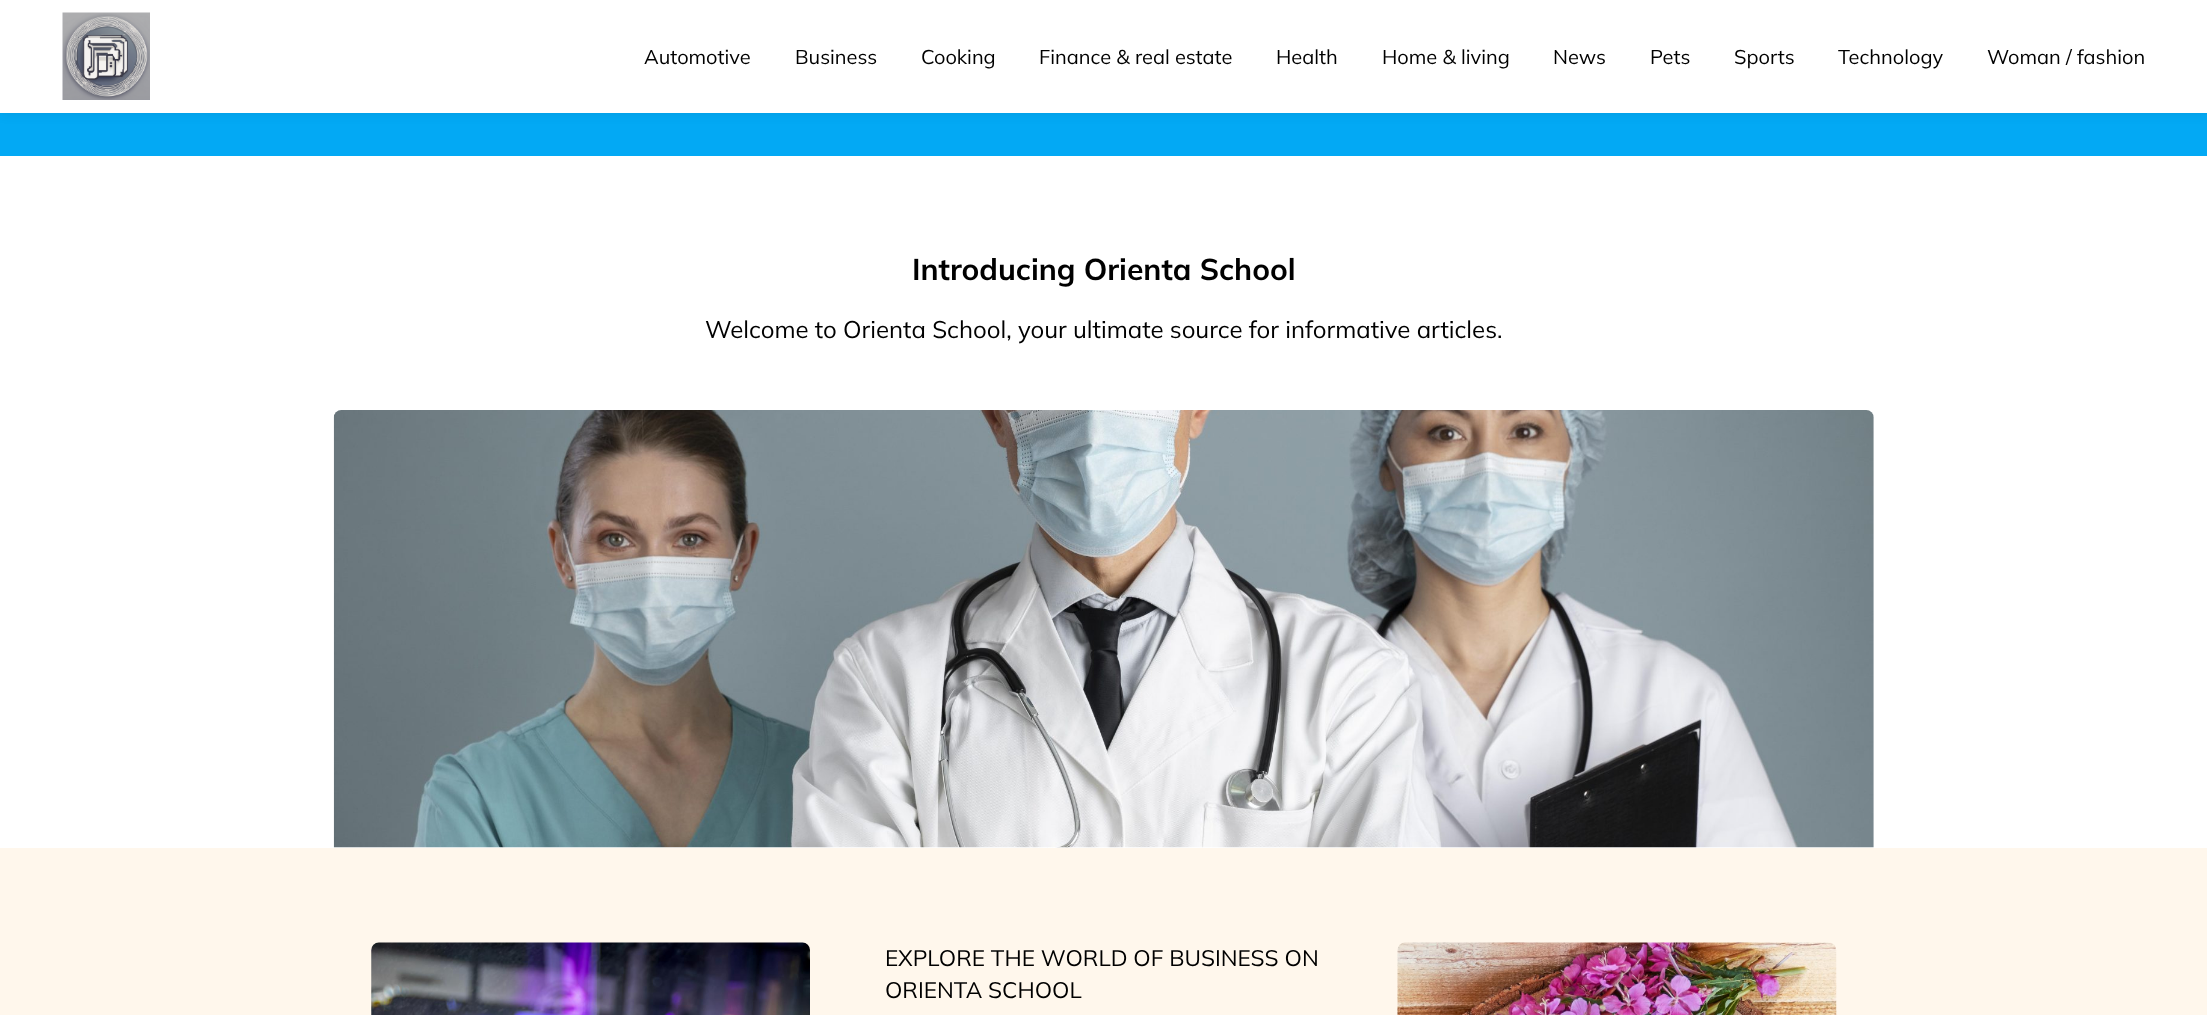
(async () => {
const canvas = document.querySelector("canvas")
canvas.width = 2207
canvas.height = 1015
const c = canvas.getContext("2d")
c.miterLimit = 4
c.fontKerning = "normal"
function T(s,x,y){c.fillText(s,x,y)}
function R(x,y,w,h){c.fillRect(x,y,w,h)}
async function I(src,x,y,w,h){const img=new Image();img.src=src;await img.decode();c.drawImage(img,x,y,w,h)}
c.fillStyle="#fff"
R(0,0,2207,1015)
c.fillStyle="#03a9f4"
R(0,113,2207,43)
c.fillStyle="#1719271a"
c.filter="blur(6px)"
c.beginPath()
c.rect(0,0,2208,113)
c.fill()
c.filter="none"
c.fillStyle="#fff"
R(0,0,2207,113)
await I("1.png",62,12,88,88)
c.font="20px Mulish"
c.fillStyle="#000"
T("Automotive",644,64)
T("Business",795,64)
T("Cooking",921,64)
T("Finance & real estate",1039,64)
T("Health",1276,64)
T("Home & living",1382,64)
T("News",1553,64)
T("Pets",1650,64)
T("Sports",1734,64)
T("Technology",1838,64)
T("Woman / fashion",1987,64)
c.font="bold 30px Mulish"
T("Introducing Orienta School",912,280)
c.font="24px Mulish"
T("Welcome to Orienta School, your ultimate source for informative articles.",705,338)
await I("2.png",333,410,1541,438)
c.fillStyle="#fff7ec"
R(0,848,2207,167)
await I("3.png",371,942,439,73)
c.font="22.5px Mulish"
c.fillStyle="#000"
T("EXPLORE THE WORLD OF BUSINESS ON",885,966)
T("ORIENTA SCHOOL",885,998)
await I("4.png",1397,942,440,73)
})()
